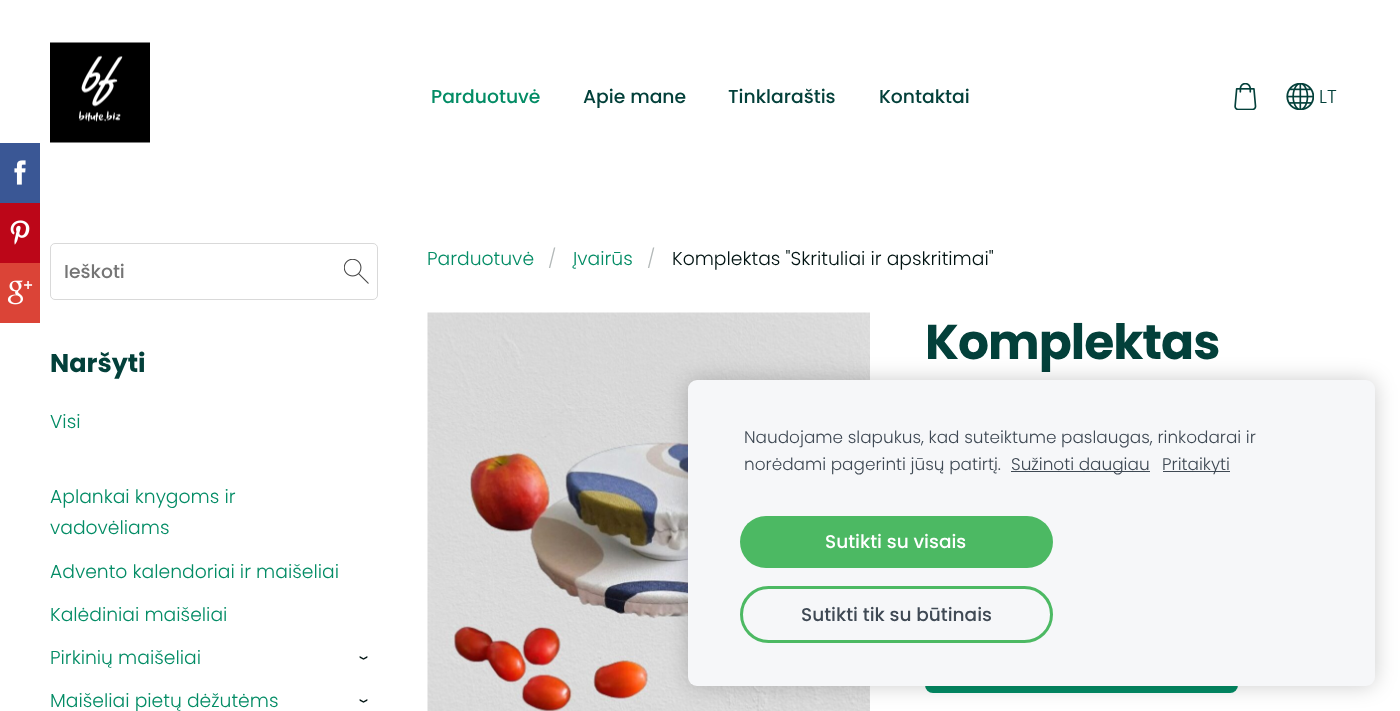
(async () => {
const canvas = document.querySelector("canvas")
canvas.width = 1400
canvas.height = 711
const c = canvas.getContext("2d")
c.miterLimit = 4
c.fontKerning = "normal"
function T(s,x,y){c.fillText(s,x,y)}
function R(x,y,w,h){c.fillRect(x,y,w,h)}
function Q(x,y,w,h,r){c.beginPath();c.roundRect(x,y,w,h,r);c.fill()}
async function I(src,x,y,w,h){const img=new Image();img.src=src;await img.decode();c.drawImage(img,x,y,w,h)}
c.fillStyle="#fff"
R(0,0,1400,711)
c.fillStyle="#3a5795"
R(0,143,40,60)
await I("1.png",14,160,12,25)
c.fillStyle="#bc0618"
R(0,203,40,60)
await I("2.png",10,220,20,25)
c.fillStyle="#db4437"
R(0,263,40,60)
await I("3.png",7,280,26,25)
await I("4.png",50,42,100,101)
c.font="500 18.75px Poppins"
c.fillStyle="#038c65"
T("Parduotuvė",431,103)
c.fillStyle="#03403a"
T("Apie mane",583,103)
T("Tinklaraštis",728,103)
T("Kontaktai",879,103)
await I("5.png",1234,83,23,27)
await I("6.png",1286,83,28,27)
c.font="300 18.75px Poppins"
T("LT",1319,103)
c.beginPath()
c.roundRect(50.5,243.5,327,56,4.5)
c.strokeStyle="#d9d9d9"
c.stroke()
c.font="500 18.75px Poppins"
c.fillStyle="#757575"
T("Ieškoti",64,278)
await I("7.png",344,259,25,25)
c.font="bold 25.5px Poppins"
c.fillStyle="#03403a"
T("Naršyti",50,372)
c.font="300 18.75px Poppins"
c.fillStyle="#038c65"
T("Visi",50,428)
T("Aplankai knygoms ir",50,503)
T("vadovėliams",50,534)
T("Advento kalendoriai ir maišeliai",50,578)
T("Kalėdiniai maišeliai",50,621)
T("Pirkinių maišeliai",50,664)
c.font="300 22px Poppins"
c.fillStyle="#011312"
c.save()
c.translate(357,655)
c.rotate(90 * Math.PI / 180)
c.fillText("›",0,0)
c.restore()
c.font="300 18.75px Poppins"
c.fillStyle="#038c65"
T("Maišeliai pietų dėžutėms",50,707)
c.font="300 22px Poppins"
c.fillStyle="#011312"
c.save()
c.translate(357,698)
c.rotate(90 * Math.PI / 180)
c.fillText("›",0,0)
c.restore()
c.font="300 18.75px Poppins"
c.fillStyle="#038c65"
T("Parduotuvė",427,265)
c.fillStyle="#b3b8b8"
T("/",548,265)
c.fillStyle="#038c65"
T("Įvairūs",573,265)
c.fillStyle="#b3b8b8"
T("/",647,265)
c.fillStyle="#011312"
T("Komplektas \"Skrituliai ir apskritimai\"",672,265)
await I("8.png",427,312,443,399)
c.letterSpacing="-1px"
c.font="bold 48.75px Poppins"
c.fillStyle="#03403a"
T("Komplektas",925,359)
c.fillStyle="#038c65"
Q(925,630,313,63,8)
c.fillStyle="#00000033"
c.filter="blur(10.5px)"
c.beginPath()
c.roundRect(688,380,687,306,9)
c.fill()
c.filter="none"
c.fillStyle="#f6f7f9"
Q(688,380,687,306,9)
c.letterSpacing="0px"
c.font="300 16.9px Poppins"
c.fillStyle="#3f4954"
T("Naudojame slapukus, kad suteiktume paslaugas, rinkodarai ir",744,443)
T("norėdami pagerinti jūsų patirtį.",744,470)
R(1011,471,139,1)
T("Sužinoti daugiau",1011,470)
R(1163,471,67,1)
T("Pritaikyti",1162,470)
c.fillStyle="#4cb963"
Q(740,516,313,52,26)
c.font="500 18.5px Poppins"
c.fillStyle="#fff"
T("Sutikti su visais",825,548)
c.beginPath()
c.roundRect(741.5,587.5,310,54,27)
c.strokeStyle="#4cb963"
c.lineWidth=3
c.stroke()
c.fillStyle="#3f4954"
T("Sutikti tik su būtinais",801,621)
})()
